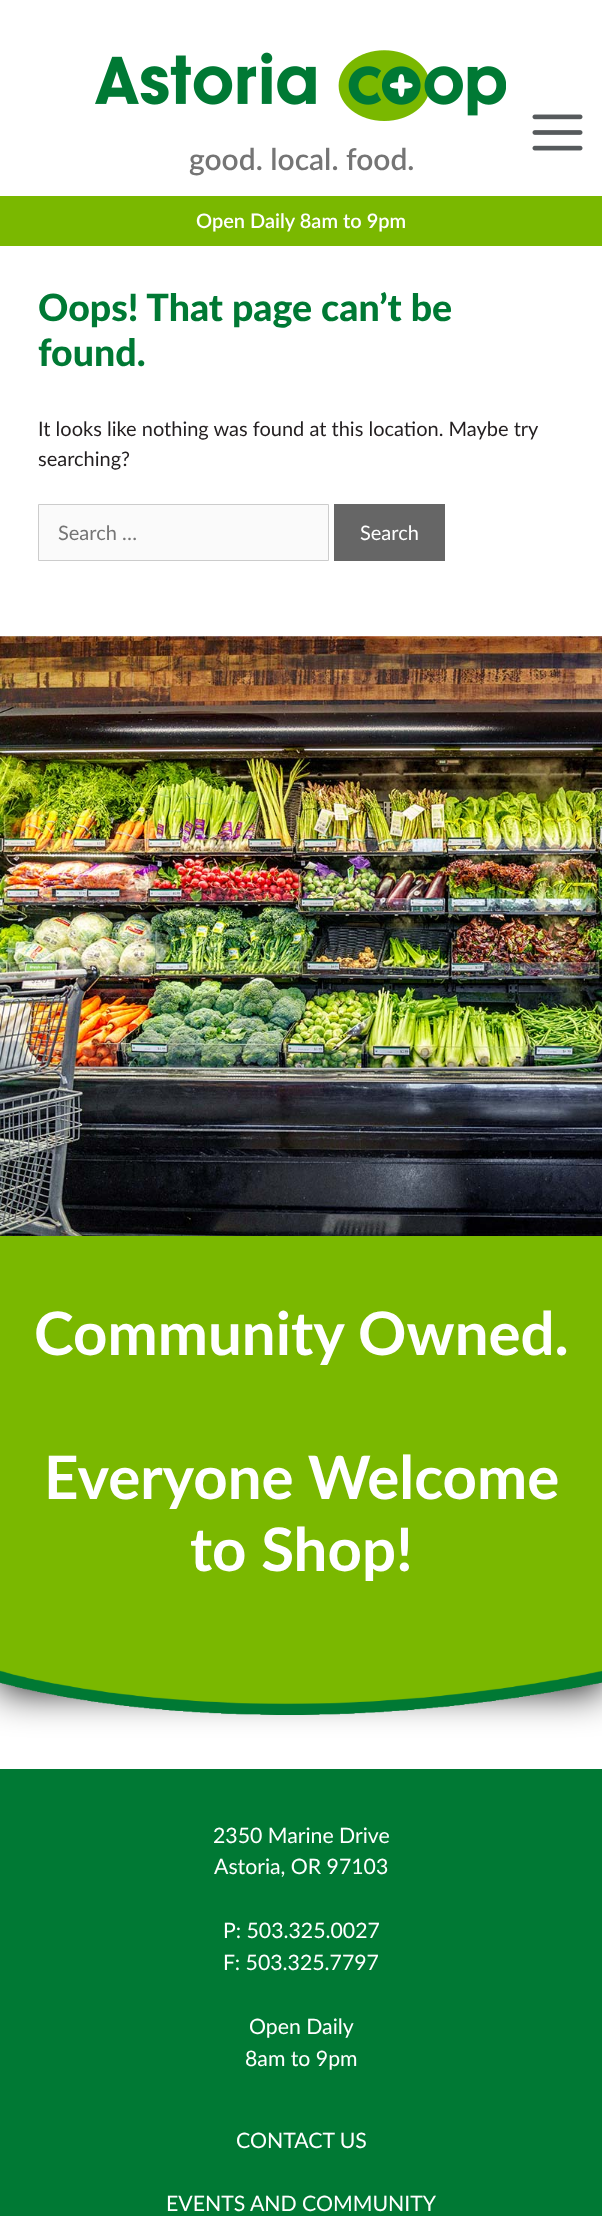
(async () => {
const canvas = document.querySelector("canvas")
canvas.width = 602
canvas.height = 2216
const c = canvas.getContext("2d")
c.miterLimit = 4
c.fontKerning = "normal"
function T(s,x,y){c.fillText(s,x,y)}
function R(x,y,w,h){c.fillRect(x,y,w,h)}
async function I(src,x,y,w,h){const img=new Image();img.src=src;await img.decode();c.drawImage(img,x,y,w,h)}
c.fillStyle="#fff"
R(0,0,602,2216)
await I("1.png",532,114,51,37)
await I("2.png",95,50,411,71)
c.font="600 30px Lato"
c.fillStyle="#757575"
T("good. local. food.",189,170)
c.fillStyle="#7ab800"
R(0,196,602,50)
c.font="600 20px Lato"
c.fillStyle="#fff"
T("Open Daily 8am to 9pm",196,228)
c.font="900 37.5px Lato"
c.fillStyle="#007934"
T("Oops! That page can’t be",38,321)
T("found.",38,366)
c.font="20px Lato"
c.fillStyle="#231f20"
T("It looks like nothing was found at this location. Maybe try",38,436)
T("searching?",38,466)
c.fillStyle="#fafafa"
c.beginPath()
c.rect(38.5,504.5,290,56)
c.fill()
c.strokeStyle="#ccc"
c.stroke()
c.fillStyle="#757575"
T("Search …",58,540)
c.fillStyle="#666"
R(334,504,111,57)
c.fillStyle="#fff"
T("Search",360,540)
await I("3.png",0,636,602,600)
c.fillStyle="#000"
c.filter="blur(20px)"
c.beginPath()
c.rect(0,1256,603,433)
c.fill()
c.filter="none"
c.fillStyle="#7ab800"
R(0,1236,602,433)
c.font="bold 60px Lato"
c.fillStyle="#fff"
T("Community Owned.",34,1355)
T("Everyone Welcome",44,1499)
T("to Shop!",190,1571)
await I("4.png",0,1669,602,46)
c.fillStyle="#007934"
R(0,1769,602,447)
c.font="21.25px Lato"
c.fillStyle="#fff"
T("2350 Marine Drive",213,1843)
T("Astoria, OR 97103",214,1874)
T("P: 503.325.0027",223,1938)
T("F: 503.325.7797",223,1970)
T("Open Daily",249,2034)
T("8am to 9pm",245,2066)
T("CONTACT US",236,2148)
T("EVENTS AND COMMUNITY",166,2211)
})()
